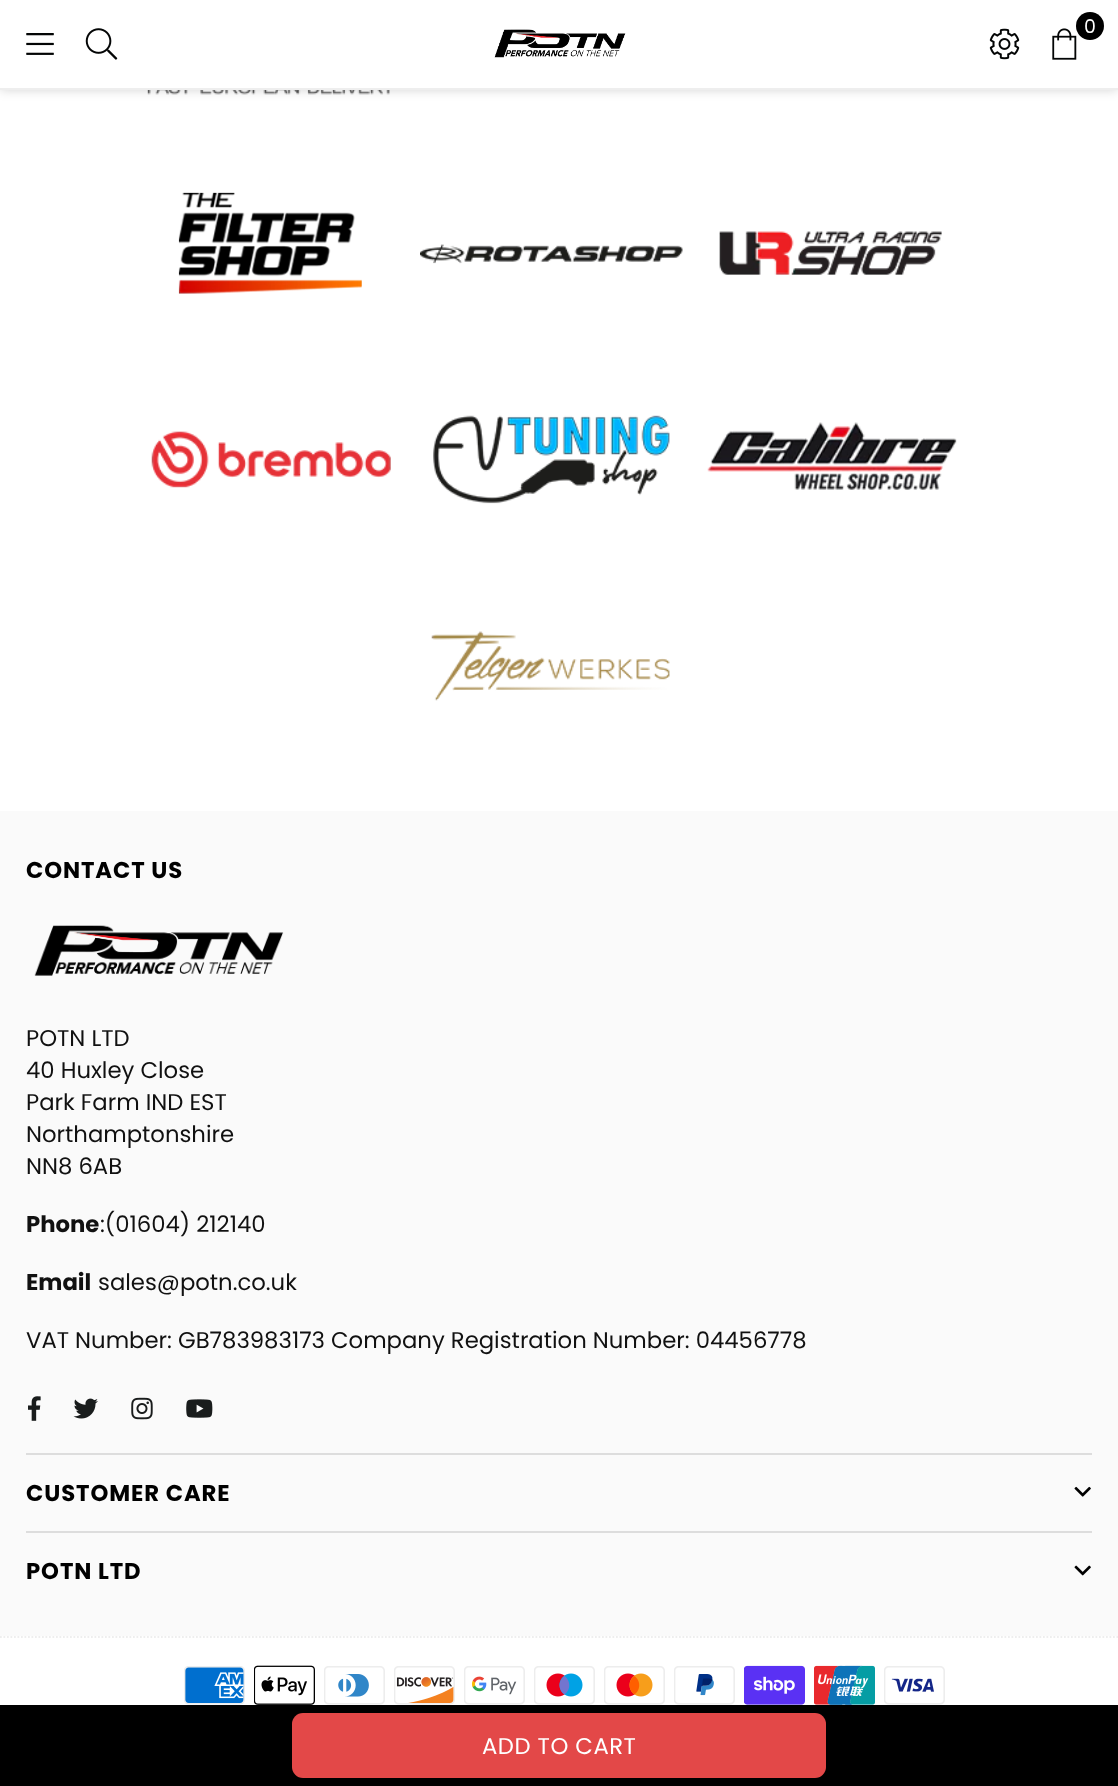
(async () => {
const canvas = document.querySelector("canvas")
canvas.width = 1118
canvas.height = 1786
const c = canvas.getContext("2d")
c.miterLimit = 4
c.fontKerning = "normal"
function T(s,x,y){c.fillText(s,x,y)}
function R(x,y,w,h){c.fillRect(x,y,w,h)}
function Q(x,y,w,h,r){c.beginPath();c.roundRect(x,y,w,h,r);c.fill()}
async function I(src,x,y,w,h){const img=new Image();img.src=src;await img.decode();c.drawImage(img,x,y,w,h)}
let path
c.fillStyle="#fff"
R(0,0,1118,1786)
await I("6.png",147,90,243,5)
c.fillStyle="#00000033"
c.filter="blur(6px)"
c.beginPath()
c.rect(0,0,1118,89)
c.fill()
c.filter="none"
c.fillStyle="#fff"
R(0,0,1118,88)
c.fillStyle="#eee"
R(0,88,1118,2)
await I("1.png",1052,28,25,32)
c.fillStyle="#000"
c.beginPath()
c.arc(1090,26,14,0,7)
c.fill()
c.font="19px Poppins"
c.fillStyle="#fff"
T("0",1084,33)
await I("2.png",989,28,31,32)
await I("3.png",26,33,28,22)
await I("4.png",85,28,33,32)
await I("5.png",494,29,132,29)
await I("7.png",178,192,184,102)
await I("8.png",420,244,263,20)
await I("9.png",719,231,223,44)
await I("10.png",151,431,240,57)
await I("11.png",433,415,237,89)
await I("12.png",707,422,250,68)
await I("13.png",431,631,239,70)
c.fillStyle="#fafafa"
R(0,811,1118,825)
c.letterSpacing="0.9px"
c.font="bold 22.75px Poppins"
c.fillStyle="#000"
T("CONTACT US",26,878)
await I("14.png",34,925,250,51)
c.letterSpacing="0px"
c.font="22.75px Poppins"
c.fillStyle="#111"
T("POTN LTD",26,1046)
T("40 Huxley Close",26,1078)
T("Park Farm IND EST",26,1110)
T("Northamptonshire",26,1142)
T("NN8 6AB",26,1174)
c.font="bold 22.75px Poppins"
T("Phone",26,1232)
c.font="22.75px Poppins"
T(":(01604) 212140",100,1232)
c.font="bold 22.75px Poppins"
T("Email",26,1290)
c.font="22.75px Poppins"
T("sales@potn.co.uk",98,1290)
T("VAT Number: GB783983173 Company Registration Number: 04456778",26,1348)
await I("15.png",28,1396,13,25)
await I("16.png",73,1398,25,21)
await I("17.png",131,1397,22,23)
await I("18.png",186,1399,27,19)
c.fillStyle="#ddd"
R(26,1453,1066,2)
c.letterSpacing="0.9px"
c.font="bold 22.75px Poppins"
c.fillStyle="#000"
T("CUSTOMER CARE",26,1501)
await I("19.png",1074,1486,17,11)
c.fillStyle="#ddd"
R(26,1531,1066,2)
c.fillStyle="#000"
T("POTN LTD",26,1579)
await I("20.png",1074,1565,17,11)
path = new Path2D("M0 1637h1118")
c.strokeStyle="#eee"
c.lineWidth=1.8
c.setLineDash([1.75,1.75])
c.stroke(path)
await I("21.png",184,1666,61,39)
await I("22.png",254,1665,61,40)
await I("23.png",324,1666,61,39)
await I("24.png",394,1666,61,39)
await I("25.png",464,1666,61,39)
await I("26.png",534,1666,61,39)
await I("27.png",604,1666,61,39)
await I("28.png",674,1666,61,39)
await I("29.png",744,1665,61,40)
await I("30.png",814,1665,61,40)
await I("31.png",884,1666,61,39)
R(0,1705,1118,81)
c.fillStyle="#e34848"
Q(292,1713,534,65,11)
c.letterSpacing="0.5px"
c.font="22.75px Poppins"
c.fillStyle="#fff"
T("ADD TO CART",482,1754)
})()
